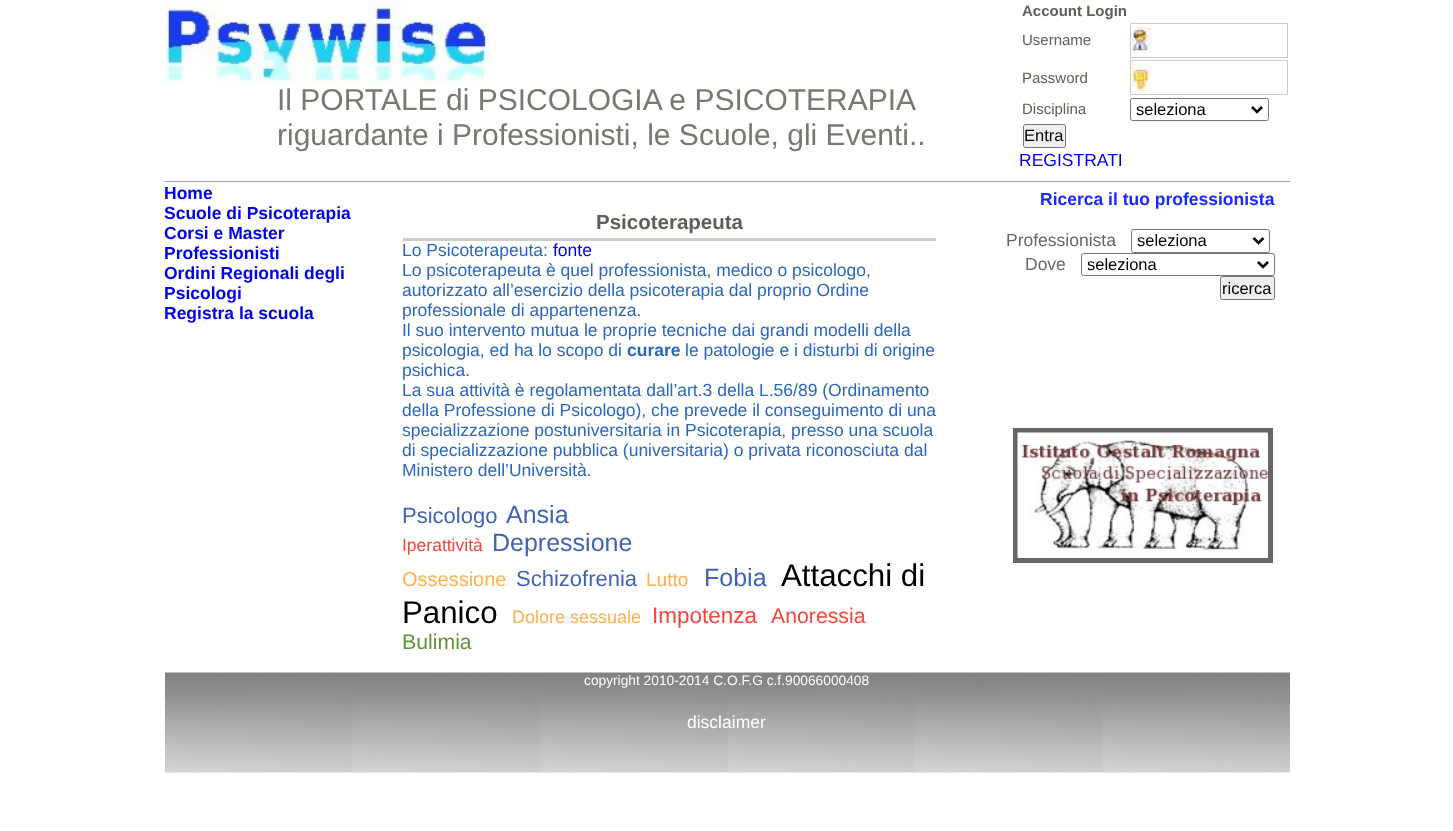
(async () => {
const canvas = document.querySelector("canvas")
canvas.width = 1453
canvas.height = 831
const c = canvas.getContext("2d")
c.miterLimit = 4
c.fontKerning = "normal"
function T(s,x,y){c.fillText(s,x,y)}
function R(x,y,w,h){c.fillRect(x,y,w,h)}
async function I(src,x,y,w,h){const img=new Image();img.src=src;await img.decode();c.drawImage(img,x,y,w,h)}
let path
c.fillStyle="#fff"
R(0,0,1453,831)
await I("1.png",165,0,325,86)
c.font="bold 15px Liberation Sans"
c.fillStyle="#5a6156"
T("Account Login",1022,16)
c.font="15px Liberation Sans"
T("Username",1022,45)
await I("2.png",1131,27,21,26)
c.strokeStyle="#ccc"
c.strokeRect(1130.5,23.5,157,34)
T("Password",1022,83)
await I("3.png",1131,62,22,31)
c.strokeRect(1130.5,60.5,157,34)
T("Disciplina",1022,114)
c.beginPath()
c.roundRect(1130.5,98.5,138,22,2)
c.strokeStyle="#767676"
c.stroke()
path = new Path2D("M1252 107l5 5l5-5")
c.strokeStyle="#000"
c.lineWidth=2.5
c.stroke(path)
c.font="16.5px Liberation Sans"
c.fillStyle="#000"
T("seleziona",1136,115)
c.fillStyle="#efefef"
c.beginPath()
c.roundRect(1023.5,124.5,42,23,2)
c.fill()
c.strokeStyle="#767676"
c.lineWidth=1
c.stroke()
c.fillStyle="#000"
T("Entra",1024,141)
c.font="17.5px Liberation Sans"
c.fillStyle="#00e"
T("REGISTRATI",1019,166)
c.font="30px Liberation Sans"
c.fillStyle="#777971"
T("Il PORTALE di PSICOLOGIA e PSICOTERAPIA",277,110)
T("riguardante i Professionisti, le Scuole, gli Eventi..",277,145)
c.fillStyle="#96a2b1"
R(165,181,1125,1)
c.font="bold 17.5px Liberation Sans"
c.fillStyle="#00e"
T("Home",164,199)
T("Scuole di Psicoterapia",164,219)
T("Corsi e Master",164,239)
T("Professionisti",164,259)
T("Ordini Regionali degli",164,279)
T("Psicologi",164,299)
T("Registra la scuola",164,319)
c.fillStyle="#ccc"
R(403,238,533,3)
c.font="bold 20.5px Liberation Sans"
c.fillStyle="#5a6156"
T("Psicoterapeuta",596,229)
c.font="17.5px Liberation Sans"
c.fillStyle="#2967c1"
T("Lo Psicoterapeuta:",402,256)
c.fillStyle="#00e"
T("fonte",553,256)
c.fillStyle="#2967c1"
T("Lo psicoterapeuta è quel professionista, medico o psicologo,",402,276)
T("autorizzato all’esercizio della psicoterapia dal proprio Ordine",402,296)
T("professionale di appartenenza.",402,316)
T("Il suo intervento mutua le proprie tecniche dai grandi modelli della",402,336)
T("psicologia, ed ha lo scopo di",402,356)
c.font="bold 17.5px Liberation Sans"
T("curare",627,356)
c.font="17.5px Liberation Sans"
T("le patologie e i disturbi di origine",685,356)
T("psichica.",402,376)
T("La sua attività è regolamentata dall’art.3 della L.56/89 (Ordinamento",402,396)
T("della Professione di Psicologo), che prevede il conseguimento di una",402,416)
T("specializzazione postuniversitaria in Psicoterapia, presso una scuola",402,436)
T("di specializzazione pubblica (universitaria) o privata riconosciuta dal",402,456)
T("Ministero dell’Università.",402,476)
c.font="22px Liberation Sans"
c.fillStyle="#4063b7"
T("Psicologo",402,523)
c.font="25px Liberation Sans"
T("Ansia",506,523)
c.font="17.5px Liberation Sans"
c.fillStyle="#f6453c"
T("Iperattività",402,551)
c.font="25px Liberation Sans"
c.fillStyle="#4063b7"
T("Depressione",492,551)
c.font="20px Liberation Sans"
c.fillStyle="#ffaf4c"
T("Ossessione",402,586)
c.font="22px Liberation Sans"
c.fillStyle="#4063b7"
T("Schizofrenia",516,586)
c.font="19px Liberation Sans"
c.fillStyle="#ffaf4c"
T("Lutto",646,586)
c.font="25px Liberation Sans"
c.fillStyle="#4063b7"
T("Fobia",704,586)
c.font="31.25px Liberation Sans"
c.fillStyle="#000"
T("Attacchi di",781,586)
T("Panico",402,623)
c.font="18px Liberation Sans"
c.fillStyle="#ffaf4c"
T("Dolore sessuale",512,623)
c.font="22.5px Liberation Sans"
c.fillStyle="#f6453c"
T("Impotenza",652,623)
c.font="21.25px Liberation Sans"
T("Anoressia",771,623)
c.fillStyle="#619535"
T("Bulimia",402,649)
c.font="bold 17.5px Liberation Sans"
c.fillStyle="#1829ff"
T("Ricerca il tuo professionista",1040,205)
c.font="17.5px Liberation Sans"
c.fillStyle="#666"
T("Professionista",1006,246)
c.beginPath()
c.roundRect(1131.5,229.5,138,23,2)
c.stroke()
path = new Path2D("M1253.5 238l5 5l5-5")
c.strokeStyle="#000"
c.lineWidth=2.5
c.stroke(path)
c.font="16.5px Liberation Sans"
c.fillStyle="#000"
T("seleziona",1137,246)
c.font="17.5px Liberation Sans"
c.fillStyle="#666"
T("Dove",1025,270)
c.beginPath()
c.roundRect(1081.5,253.5,193,22,2)
c.strokeStyle="#767676"
c.lineWidth=1
c.stroke()
path = new Path2D("M1258 262l5 5l5-5")
c.strokeStyle="#000"
c.lineWidth=2.5
c.stroke(path)
c.save()
c.beginPath()
c.rect(1088,254,166,21)
c.clip()
c.font="16.5px Liberation Sans"
c.fillStyle="#000"
T("seleziona",1087,270)
c.restore()
c.fillStyle="#efefef"
c.beginPath()
c.roundRect(1220.5,276.5,54,23,2)
c.fill()
c.strokeStyle="#767676"
c.lineWidth=1
c.stroke()
c.font="16.5px Liberation Sans"
c.fillStyle="#000"
T("ricerca",1222,294)
c.strokeStyle="#666"
c.lineWidth=5
c.strokeRect(1015.5,430.5,255,130)
await I("4.png",1017,432,251,126)
await I("5.png",165,672,1125,101)
c.font="13.75px Liberation Sans"
c.fillStyle="#fff"
T("copyright 2010-2014 C.O.F.G c.f.90066000408",584,685)
c.font="17.5px Liberation Sans"
T("disclaimer",687,728)
})()
